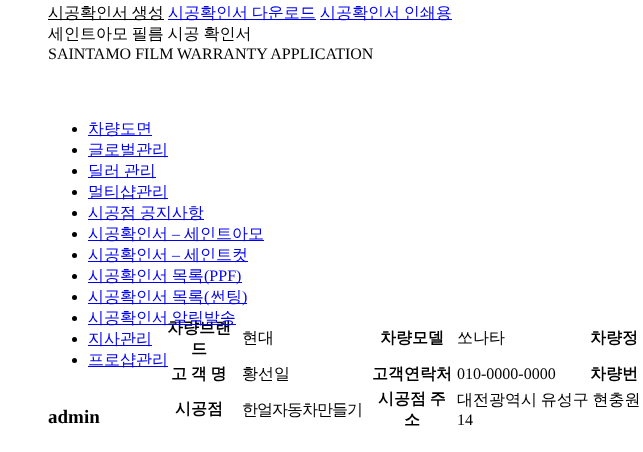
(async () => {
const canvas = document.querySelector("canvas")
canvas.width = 643
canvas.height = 452
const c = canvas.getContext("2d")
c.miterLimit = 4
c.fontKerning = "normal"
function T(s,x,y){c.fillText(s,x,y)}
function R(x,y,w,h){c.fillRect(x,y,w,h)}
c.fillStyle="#fff"
R(0,0,643,452)
c.fillStyle="#000"
R(48,19,116,1)
c.wordSpacing="-1px"
c.font="500 16px WenQuanYi Zen Hei"
T("시공확인서 생성",48,18)
c.fillStyle="#00e"
R(168,19,148,1)
T("시공확인서 다운로드",168,18)
R(320,19,132,1)
T("시공확인서 인쇄용",320,18)
c.fillStyle="#000"
T("세인트아모 필름 시공 확인서",48,39)
c.wordSpacing="0px"
c.font="16px Liberation Serif"
T("SAINTAMO FILM WARRANTY APPLICATION",48,59)
c.font="bold 16px WenQuanYi Zen Hei"
T("차량브랜",167,333)
T("드",191,354)
c.font="500 16px WenQuanYi Zen Hei"
T("현대",242,343)
c.font="bold 16px WenQuanYi Zen Hei"
T("차량모델",380,343)
c.font="500 16px WenQuanYi Zen Hei"
T("쏘나타",457,343)
c.font="bold 16px WenQuanYi Zen Hei"
T("차량정",590,343)
c.wordSpacing="-1px"
T("고 객 명",171,379)
c.wordSpacing="0px"
c.font="500 16px WenQuanYi Zen Hei"
T("황선일",242,379)
c.font="bold 16px WenQuanYi Zen Hei"
T("고객연락처",372,379)
c.font="16px Liberation Serif"
T("010-0000-0000",457,379)
c.font="bold 16px WenQuanYi Zen Hei"
T("차량번",590,379)
T("시공점",175,414)
c.letterSpacing="-1px"
c.font="500 16px WenQuanYi Zen Hei"
T("한얼자동차만들기",242,415)
c.letterSpacing="0px"
c.wordSpacing="-1px"
c.font="bold 16px WenQuanYi Zen Hei"
T("시공점 주",378,404)
c.wordSpacing="0px"
T("소",404,425)
c.wordSpacing="-1px"
c.font="500 16px WenQuanYi Zen Hei"
T("대전광역시 유성구 현충원",457,405)
c.wordSpacing="0px"
c.font="16px Liberation Serif"
T("14",457,425)
c.beginPath()
c.arc(74.5,129.5,2.5,0,7)
c.fill()
c.fillStyle="#00e"
R(88,135,64,1)
c.font="500 16px WenQuanYi Zen Hei"
T("차량도면",88,134)
c.fillStyle="#000"
c.beginPath()
c.arc(74.5,150.5,2.5,0,7)
c.fill()
c.fillStyle="#00e"
R(88,156,80,1)
T("글로벌관리",88,155)
c.fillStyle="#000"
c.beginPath()
c.arc(74.5,171.5,2.5,0,7)
c.fill()
c.fillStyle="#00e"
R(88,177,68,1)
c.wordSpacing="-1px"
T("딜러 관리",88,176)
c.fillStyle="#000"
c.beginPath()
c.arc(74.5,192.5,2.5,0,7)
c.fill()
c.fillStyle="#00e"
R(88,198,80,1)
c.wordSpacing="0px"
T("멀티샵관리",88,197)
c.fillStyle="#000"
c.beginPath()
c.arc(74.5,213.5,2.5,0,7)
c.fill()
c.fillStyle="#00e"
R(88,219,116,1)
c.wordSpacing="-1px"
T("시공점 공지사항",88,218)
c.fillStyle="#000"
c.beginPath()
c.arc(74.5,234.5,2.5,0,7)
c.fill()
c.fillStyle="#00e"
R(88,240,176,1)
c.wordSpacing="0px"
T("시공확인서",88,239)
c.font="16px Liberation Serif"
T("–",172,239)
c.font="500 16px WenQuanYi Zen Hei"
T("세인트아모",184,239)
c.fillStyle="#000"
c.beginPath()
c.arc(74.5,255.5,2.5,0,7)
c.fill()
c.fillStyle="#00e"
R(88,261,160,1)
T("시공확인서",88,260)
c.font="16px Liberation Serif"
T("–",172,260)
c.font="500 16px WenQuanYi Zen Hei"
T("세인트컷",184,260)
c.fillStyle="#000"
c.beginPath()
c.arc(74.5,276.5,2.5,0,7)
c.fill()
c.fillStyle="#00e"
R(88,282,154,1)
c.wordSpacing="-1px"
T("시공확인서 목록",88,281)
c.wordSpacing="0px"
c.font="16px Liberation Serif"
T("(PPF)",204,281)
c.fillStyle="#000"
c.beginPath()
c.arc(74.5,297.5,2.5,0,7)
c.fill()
c.fillStyle="#00e"
R(88,303,159,1)
c.wordSpacing="-1px"
c.font="500 16px WenQuanYi Zen Hei"
T("시공확인서 목록",88,302)
c.wordSpacing="0px"
c.font="16px Liberation Serif"
T("(",204,302)
c.font="500 16px WenQuanYi Zen Hei"
T("썬팅",210,302)
c.font="16px Liberation Serif"
T(")",242,302)
c.fillStyle="#000"
c.beginPath()
c.arc(74.5,318.5,2.5,0,7)
c.fill()
c.fillStyle="#00e"
R(88,324,148,1)
c.wordSpacing="-1px"
c.font="500 16px WenQuanYi Zen Hei"
T("시공확인서 알림발송",88,323)
c.fillStyle="#000"
c.beginPath()
c.arc(74.5,339.5,2.5,0,7)
c.fill()
c.fillStyle="#00e"
R(88,345,64,1)
c.wordSpacing="0px"
T("지사관리",88,344)
c.fillStyle="#000"
c.beginPath()
c.arc(74.5,360.5,2.5,0,7)
c.fill()
c.fillStyle="#00e"
R(88,366,80,1)
T("프로샵관리",88,365)
c.font="bold 19px Liberation Serif"
c.fillStyle="#000"
T("admin",48,423)
})()
